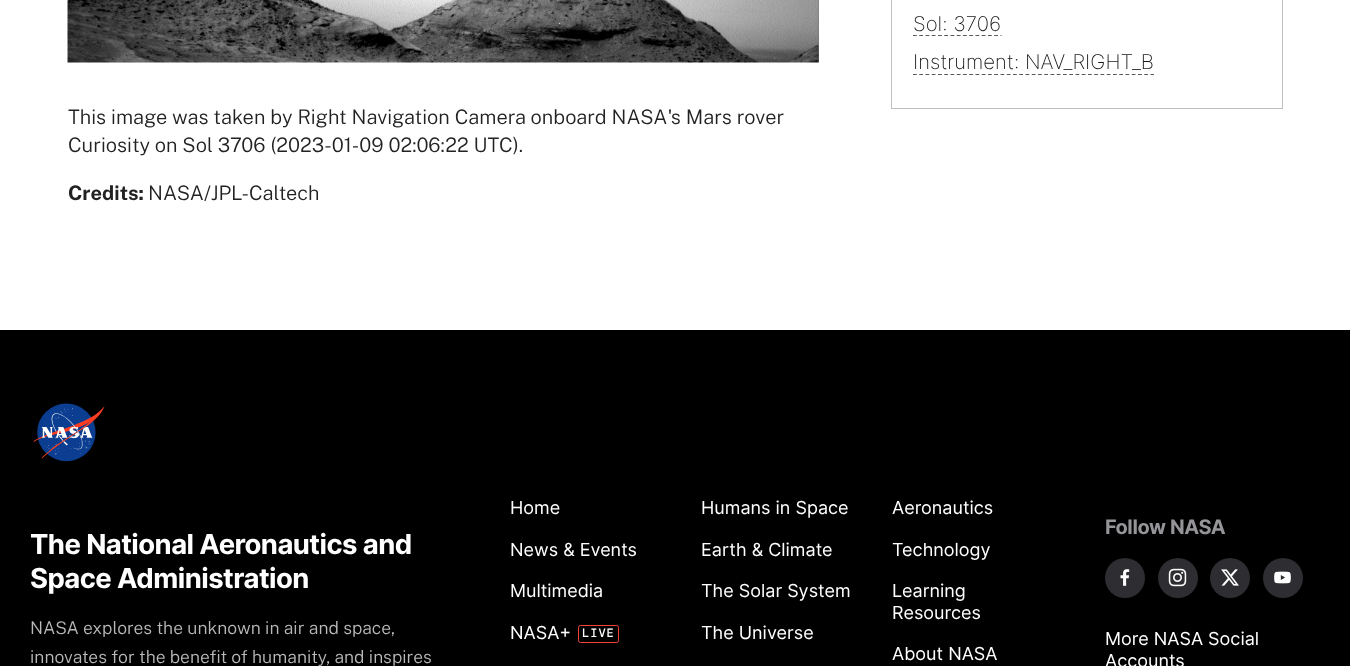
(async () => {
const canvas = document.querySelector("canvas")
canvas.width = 1368
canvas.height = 666
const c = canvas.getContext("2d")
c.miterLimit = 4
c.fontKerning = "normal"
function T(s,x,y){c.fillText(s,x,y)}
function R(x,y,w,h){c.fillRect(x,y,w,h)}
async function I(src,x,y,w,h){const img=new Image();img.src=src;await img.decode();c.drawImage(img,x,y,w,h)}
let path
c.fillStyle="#fff"
R(0,0,1368,666)
c.strokeStyle="#c1c1c1"
c.strokeRect(891.5,-.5,391,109)
c.font="200 20.4px Inter"
c.fillStyle="#17171b"
T("Sol: 3706",913,31)
path = new Path2D("M913 35.5h88.5")
c.strokeStyle="#58585b"
c.lineWidth=1.2
c.setLineDash([3.75,2.5])
c.stroke(path)
T("Instrument: NAV_RIGHT_B",913,69)
path = new Path2D("M913 74.5h241")
c.stroke(path)
await I("1.png",67,0,752,63)
c.font="300 20px Public Sans"
c.fillStyle="#222"
T("This image was taken by Right Navigation Camera onboard NASA's Mars rover",68,124)
T("Curiosity on Sol 3706 (2023-01-09 02:06:22 UTC).",68,152)
c.font="bold 20px Public Sans"
T("Credits:",68,200)
c.font="300 20px Public Sans"
T("NASA/JPL-Caltech",148,200)
c.fillStyle="#000"
R(0,330,1350,336)
await I("2.png",33,403,72,59)
c.letterSpacing="-0.55px"
c.font="bold 27.5px Inter"
c.fillStyle="#fff"
T("The National Aeronautics and",30,554)
T("Space Administration",30,588)
c.letterSpacing="0px"
c.font="300 17.5px Public Sans"
c.fillStyle="#b9b9bb"
T("NASA explores the unknown in air and space,",30,634)
T("innovates for the benefit of humanity, and inspires",30,663)
c.font="18px Inter"
c.fillStyle="#fff"
T("Home",510,514)
T("Humans in Space",701,514)
T("Aeronautics",892,514)
T("News & Events",510,556)
T("Earth & Climate",701,556)
T("Technology",892,556)
T("Multimedia",510,597)
T("The Solar System",701,597)
T("Learning",892,597)
T("Resources",892,619)
T("NASA+",510,639)
c.beginPath()
c.roundRect(578.5,625.5,40,17,2)
c.strokeStyle="#f64137"
c.lineWidth=1
c.setLineDash([])
c.stroke()
c.letterSpacing="1px"
c.font="500 12px DM Mono"
T("LIVE",582,637)
c.letterSpacing="0px"
c.font="18px Inter"
T("The Universe",701,639)
T("About NASA",892,660)
c.letterSpacing="-0.4px"
c.font="bold 20px Inter"
c.fillStyle="#959599"
T("Follow NASA",1105,534)
c.fillStyle="#2e2e32"
c.beginPath()
c.arc(1125,578,20,0,7)
c.fill()
await I("3.png",1120,569,10,17)
c.beginPath()
c.arc(1178,578,20,0,7)
c.fill()
await I("4.png",1168,568,19,19)
c.beginPath()
c.arc(1230,578,20,0,7)
c.fill()
await I("5.png",1221,569,18,17)
c.beginPath()
c.arc(1283,578,20,0,7)
c.fill()
await I("6.png",1274,571,17,13)
c.letterSpacing="0px"
c.font="18px Inter"
c.fillStyle="#fff"
T("More NASA Social",1105,645)
T("Accounts",1105,667)
})()
